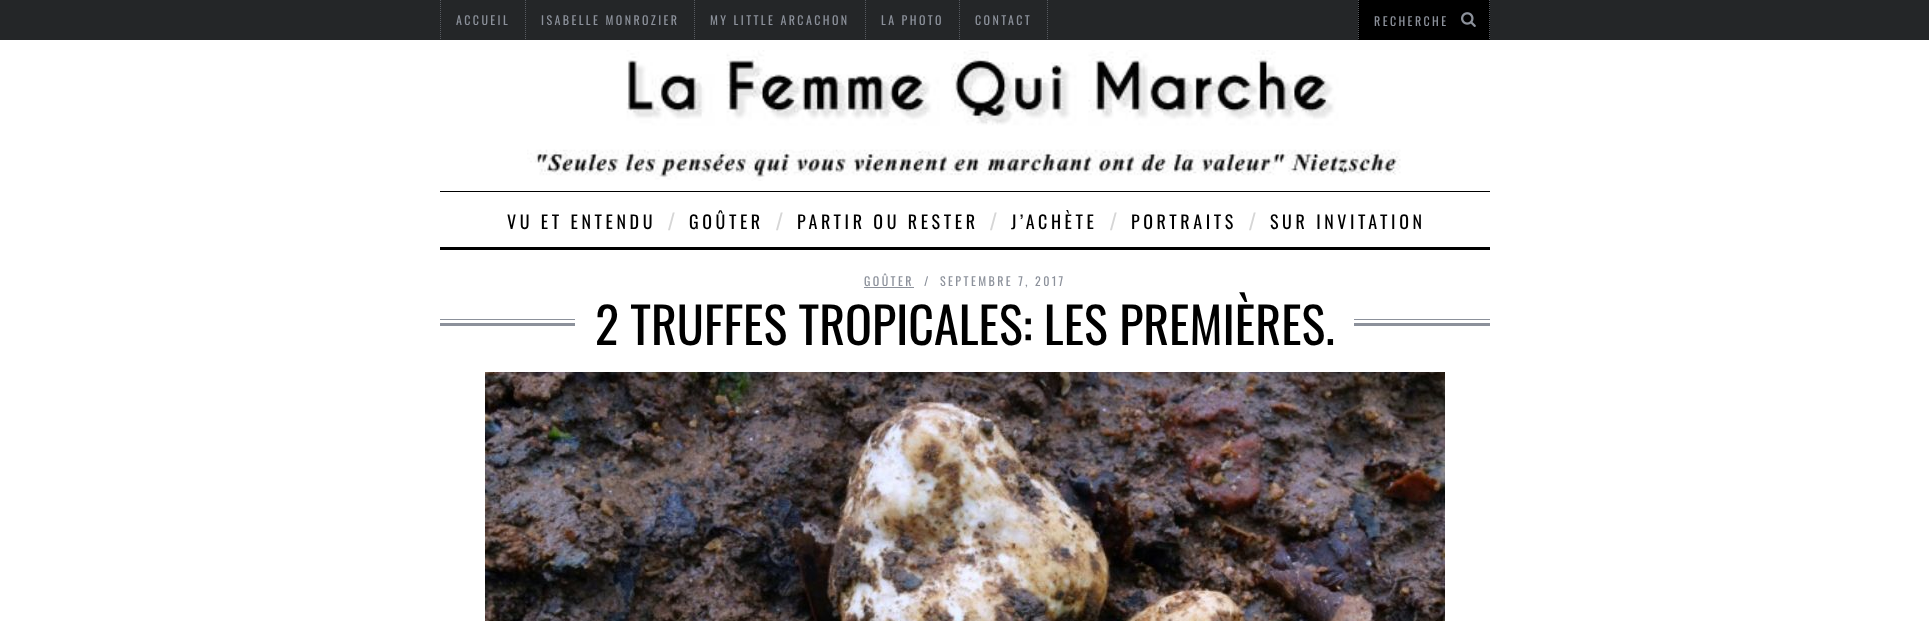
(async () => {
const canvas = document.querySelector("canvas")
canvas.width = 1929
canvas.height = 621
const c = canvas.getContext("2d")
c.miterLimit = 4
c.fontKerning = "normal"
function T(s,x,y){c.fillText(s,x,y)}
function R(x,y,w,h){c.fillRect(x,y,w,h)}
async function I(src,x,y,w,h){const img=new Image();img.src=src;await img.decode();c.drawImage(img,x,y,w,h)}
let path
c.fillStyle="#fff"
R(0,0,1929,621)
c.fillStyle="#242628"
R(0,0,1929,40)
path = new Path2D("M525.5 0v40")
c.strokeStyle="#585b61"
c.setLineDash([1,1])
c.stroke(path)
path = new Path2D("M440.5 0v40")
c.stroke(path)
c.letterSpacing="2.4px"
c.font="12px Oswald"
c.fillStyle="#8c919b"
T("ACCUEIL",456,25)
path = new Path2D("M694.5 0v40")
c.stroke(path)
T("ISABELLE MONROZIER",541,25)
path = new Path2D("M865.5 0v40")
c.stroke(path)
T("MY LITTLE ARCACHON",710,25)
path = new Path2D("M959.5 0v40")
c.stroke(path)
T("LA PHOTO",881,25)
path = new Path2D("M1047.5 0v40")
c.stroke(path)
T("CONTACT",975,25)
c.fillStyle="#000"
R(1358,0,132,40)
path = new Path2D("M1489.5 0v40")
c.stroke(path)
path = new Path2D("M1358.5 0v40")
c.stroke(path)
c.fillStyle="#8c919b"
T("RECHERCHE",1374,26)
await I("1.png",1461,12,15,15)
await I("2.png",527,50,874,131)
c.fillStyle="#000"
R(440,191,1050,1)
R(440,247,1050,3)
c.letterSpacing="3.6px"
c.font="18px Oswald"
T("VU ET ENTENDU",507,229)
c.font="24px Liberation Sans"
c.fillStyle="#d6d6d6"
T("/",668,230)
c.font="18px Oswald"
c.fillStyle="#000"
T("GOÛTER",689,229)
c.font="24px Liberation Sans"
c.fillStyle="#d6d6d6"
T("/",776,230)
c.font="18px Oswald"
c.fillStyle="#000"
T("PARTIR OU RESTER",797,229)
c.font="24px Liberation Sans"
c.fillStyle="#d6d6d6"
T("/",990,230)
c.font="18px Oswald"
c.fillStyle="#000"
T("J’ACHÈTE",1011,229)
c.font="24px Liberation Sans"
c.fillStyle="#d6d6d6"
T("/",1110,230)
c.font="18px Oswald"
c.fillStyle="#000"
T("PORTRAITS",1131,229)
c.font="24px Liberation Sans"
c.fillStyle="#d6d6d6"
T("/",1249,230)
c.font="18px Oswald"
c.fillStyle="#000"
T("SUR INVITATION",1270,229)
c.letterSpacing="2.4px"
c.font="12px Oswald"
c.fillStyle="#8c919b"
T("GOÛTER",864,286)
R(864,287,50,1)
T("/",924,286)
T("SEPTEMBRE 7, 2017",940,286)
await I("3.png",440,319,1050,7)
c.fillStyle="#fff"
R(575,319,779,7)
c.letterSpacing="0px"
c.font="50px Oswald"
c.fillStyle="#000"
T("2 TRUFFES TROPICALES: LES PREMIÈRES.",595,345)
await I("4.png",485,372,960,249)
})()
